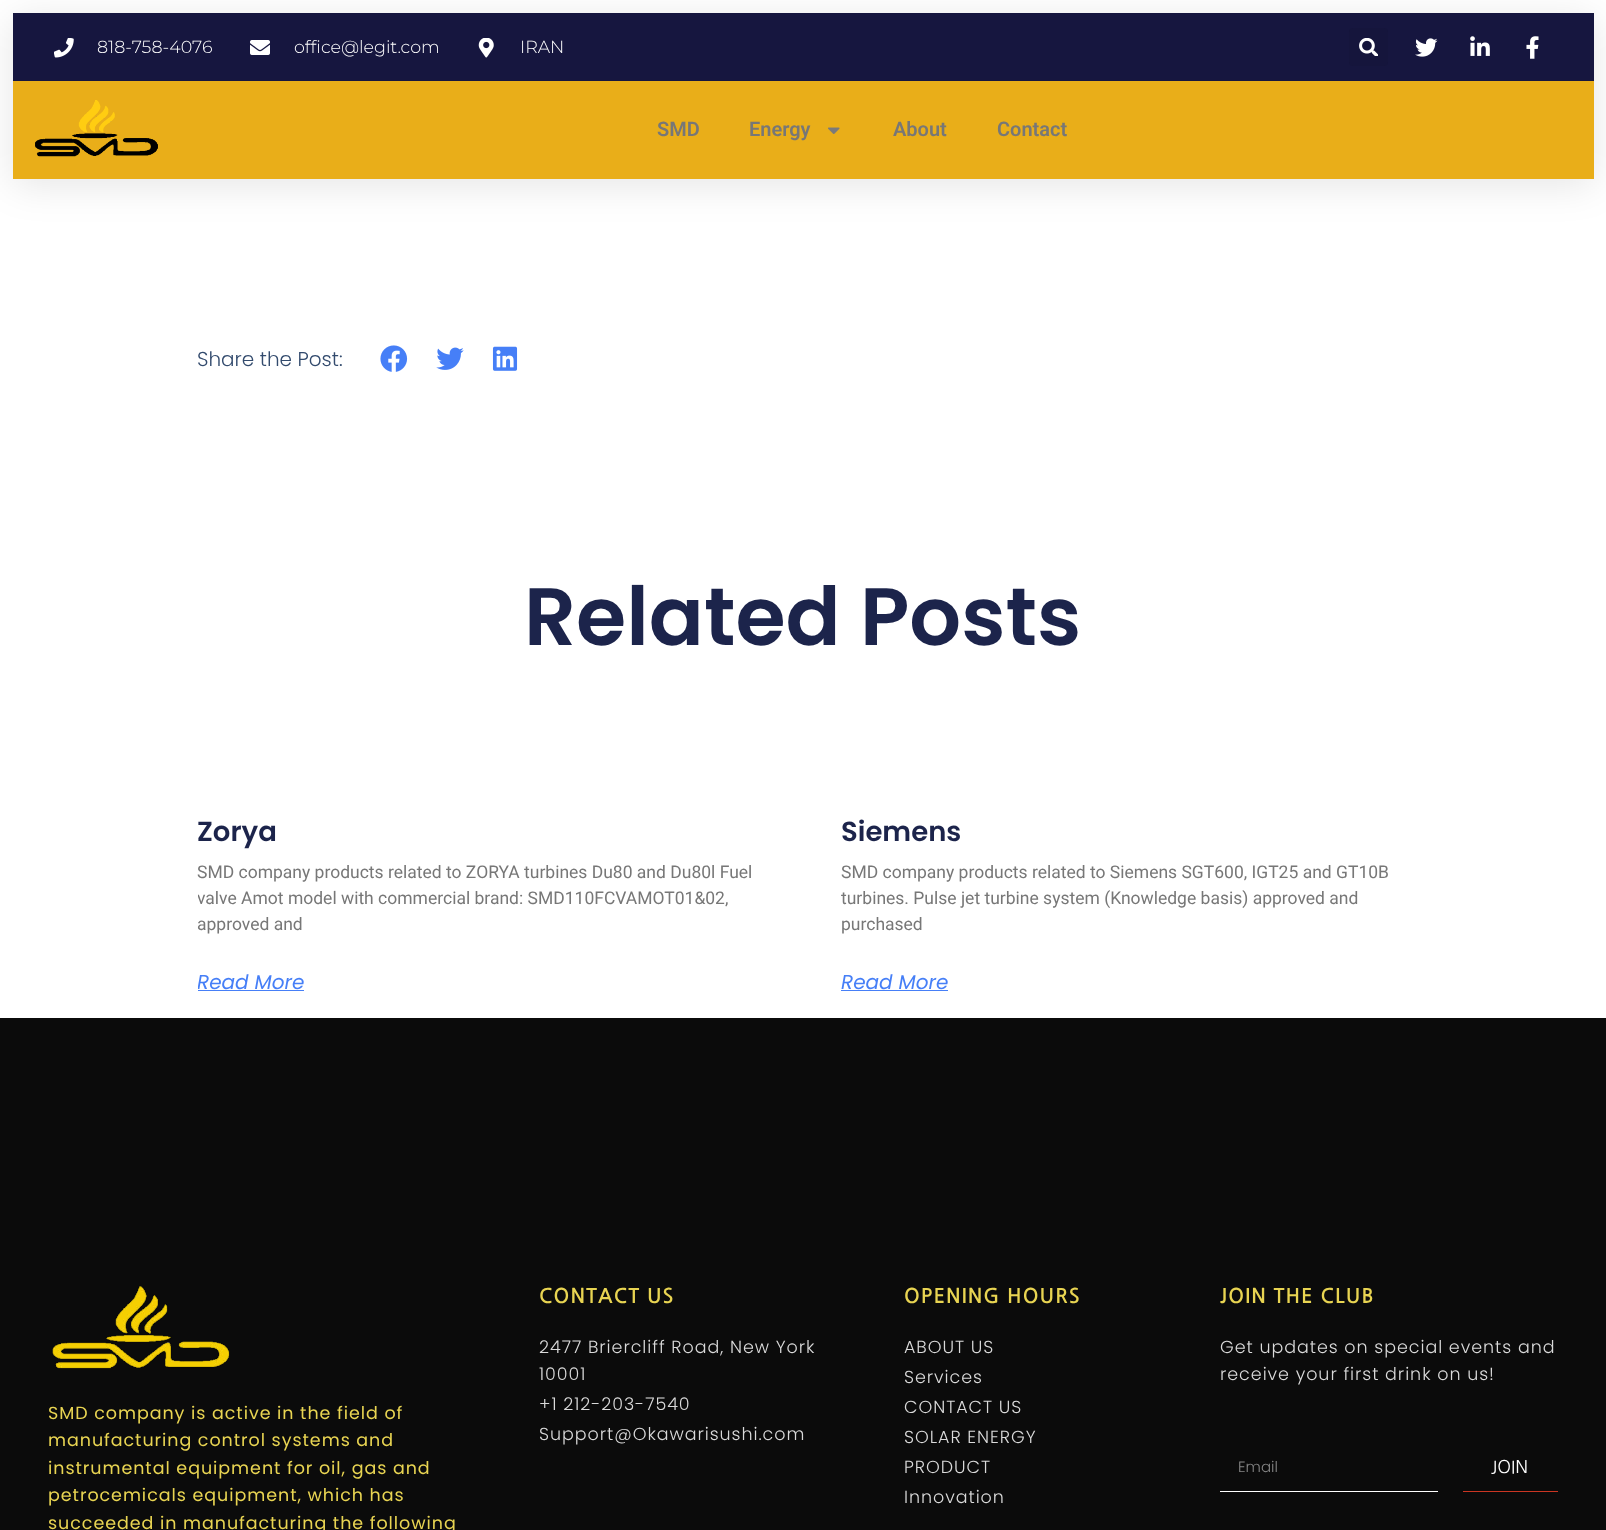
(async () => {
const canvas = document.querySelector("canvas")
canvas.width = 1606
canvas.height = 1530
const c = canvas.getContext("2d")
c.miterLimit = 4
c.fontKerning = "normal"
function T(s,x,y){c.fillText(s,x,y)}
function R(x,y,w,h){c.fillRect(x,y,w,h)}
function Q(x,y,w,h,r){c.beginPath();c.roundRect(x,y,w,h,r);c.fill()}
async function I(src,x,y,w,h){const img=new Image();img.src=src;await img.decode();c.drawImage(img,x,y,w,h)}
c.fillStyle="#fff"
R(0,0,1606,1530)
c.fillStyle="#0000001a"
c.filter="blur(19px)"
c.beginPath()
c.rect(13,19,1581,166)
c.fill()
c.filter="none"
c.fillStyle="#16163f"
R(13,13,1581,68)
await I("1.png",54,38,20,20)
c.font="300 17.5px Montserrat"
c.fillStyle="#fff"
T("818-758-4076",97,53)
await I("2.png",250,40,20,15)
T("office@legit.com",294,53)
await I("3.png",478,38,16,20)
T("IRAN",520,53)
c.fillStyle="#15153c"
Q(1349,28,39,38,4)
await I("4.png",1359,38,19,18)
await I("5.png",1415,38,23,19)
await I("6.png",1470,36,20,20)
await I("7.png",1526,36,13,23)
c.fillStyle="#e9ae19"
R(13,81,1581,98)
await I("8.png",35,100,123,57)
c.font="600 20px Roboto"
c.fillStyle="#777"
T("SMD",657,136)
T("Energy",749,136)
await I("9.png",828,127,12,7)
T("About",893,136)
T("Contact",997,136)
c.font="300 20px Poppins"
c.fillStyle="#324a6d"
T("Share the Post:",197,366)
await I("10.png",380,345,28,27)
await I("11.png",436,347,28,23)
await I("12.png",492,346,26,25)
c.font="600 81.25px Poppins"
c.fillStyle="#1c244b"
T("Related Posts",524,645)
c.font="600 27.5px Poppins"
T("Zorya",197,841)
c.font="17.5px Roboto"
c.fillStyle="#777"
T("SMD company products related to ZORYA turbines Du80 and Du80l Fuel",197,878)
c.save()
c.beginPath()
c.roundRect(198,791,568,227,4)
c.clip()
T("valve Amot model with commercial brand: SMD110FCVAMOT01&02,",197,904)
c.restore()
T("approved and",197,930)
c.save()
c.beginPath()
c.roundRect(198,791,568,227,4)
c.clip()
c.font="italic 20px Poppins"
c.fillStyle="#467ff7"
T("Read More",197,989)
c.restore()
c.fillStyle="#467ff7"
R(198,990,106,1)
c.font="600 27.5px Poppins"
c.fillStyle="#1c244b"
T("Siemens",841,841)
c.font="17.5px Roboto"
c.fillStyle="#777"
T("SMD company products related to Siemens SGT600, IGT25 and GT10B",841,878)
T("turbines. Pulse jet turbine system (Knowledge basis) approved and",841,904)
T("purchased",841,930)
c.font="italic 20px Poppins"
c.fillStyle="#467ff7"
T("Read More",841,989)
R(841,990,107,1)
c.fillStyle="#0b0b0b"
R(0,1018,1606,512)
await I("13.png",52,1286,178,83)
c.letterSpacing="0.95px"
c.font="17.5px Poppins"
c.fillStyle="#e8d452"
T("SMD company is active in the field of",48,1419)
T("manufacturing control systems and",48,1446)
T("instrumental equipment for oil, gas and",48,1474)
T("petrocemicals equipment, which has",48,1501)
T("succeeded in manufacturing the following",48,1529)
c.letterSpacing="1.1px"
c.font="bold 20px NanumGothic"
T("CONTACT US",539,1303)
c.letterSpacing="0.95px"
c.font="300 17.5px Poppins"
c.fillStyle="#dadada"
T("2477 Briercliff Road, New York",539,1353)
T("10001",539,1380)
T("+1 212-203-7540",539,1410)
T("Support@Okawarisushi.com",539,1440)
c.letterSpacing="1.1px"
c.font="bold 20px NanumGothic"
c.fillStyle="#e8d452"
T("OPENING HOURS",904,1303)
c.letterSpacing="0.95px"
c.font="300 17.5px Poppins"
c.fillStyle="#dadada"
T("ABOUT US",904,1353)
T("Services",904,1383)
T("CONTACT US",904,1413)
T("SOLAR ENERGY",904,1443)
T("PRODUCT",904,1473)
T("Innovation",904,1503)
c.letterSpacing="1.1px"
c.font="bold 20px NanumGothic"
c.fillStyle="#e8d452"
T("JOIN THE CLUB",1220,1303)
c.letterSpacing="0.95px"
c.font="300 17.5px Poppins"
c.fillStyle="#dadada"
T("Get updates on special events and",1220,1353)
T("receive your first drink on us!",1220,1380)
c.fillStyle="#fff"
R(1220,1491,218,1)
c.letterSpacing="0px"
c.font="300 15px Poppins"
c.fillStyle="#878787"
T("Email",1238,1472)
c.fillStyle="#cb3522"
R(1463,1491,95,1)
c.font="17.5px NanumGothic"
c.fillStyle="#fff"
T("JOIN",1491,1473)
})()
